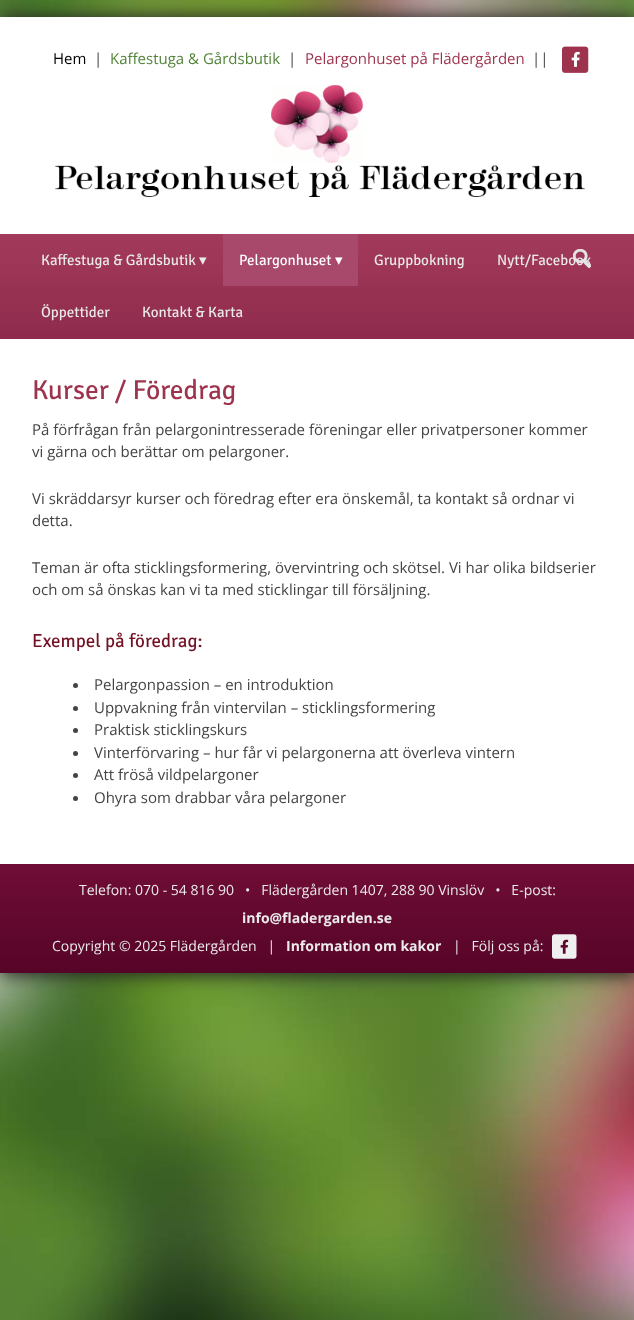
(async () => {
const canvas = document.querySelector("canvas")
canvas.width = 634
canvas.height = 1320
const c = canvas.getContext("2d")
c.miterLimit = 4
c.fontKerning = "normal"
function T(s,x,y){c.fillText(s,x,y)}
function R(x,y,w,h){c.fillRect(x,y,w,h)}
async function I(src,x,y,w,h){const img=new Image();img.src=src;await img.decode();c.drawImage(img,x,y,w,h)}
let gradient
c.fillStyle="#fff"
R(0,0,634,1320)
await I("1.png",0,0,634,1320)
c.fillStyle="#222"
c.filter="blur(9px)"
c.beginPath()
c.rect(0,17,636,958)
c.fill()
c.filter="none"
c.fillStyle="#fff"
R(0,17,634,847)
c.font="15px Open Sans"
c.fillStyle="#000"
T("Hem",53,64)
c.fillStyle="#444"
T("|",94,64)
c.fillStyle="#528439"
T("Kaffestuga & Gårdsbutik",110,64)
c.fillStyle="#444"
T("|",288,64)
c.fillStyle="#9d334d"
T("Pelargonhuset på Flädergården",305,64)
c.fillStyle="#444"
T("||",532,64)
await I("2.png",562,46,27,27)
await I("3.png",571,51,9,16)
await I("4.png",271,85,93,78)
await I("5.png",55,165,530,32)
gradient = c.createLinearGradient(317,234,317,339)
gradient.addColorStop(0,"#a33a5b")
gradient.addColorStop(1,"#8e2b4c")
c.fillStyle = gradient
R(0,234,634,105)
c.font="15px Signika Negative"
c.fillStyle="#eaeaea"
T("Nytt/Facebook",497,265)
await I("6.png",573,249,18,19)
T("Kaffestuga & Gårdsbutik",41,265)
c.font="15px DejaVu Sans"
T("▾",199,265)
c.fillStyle="#a8486b"
R(223,234,135,52)
c.font="15px Signika Negative"
c.fillStyle="#fff"
T("Pelargonhuset",239,265)
c.font="15px DejaVu Sans"
T("▾",335,265)
c.font="15px Signika Negative"
c.fillStyle="#eaeaea"
T("Gruppbokning",374,265)
T("Öppettider",41,317)
T("Kontakt & Karta",142,317)
c.font="27.5px Signika Negative"
c.fillStyle="#9d334d"
T("Kurser / Föredrag",32,399)
c.font="15px Open Sans"
c.fillStyle="#444"
T("På förfrågan från pelargonintresserade föreningar eller privatpersoner kommer",32,435)
T("vi gärna och berättar om pelargoner.",32,457)
T("Vi skräddarsyr kurser och föredrag efter era önskemål, ta kontakt så ordnar vi",32,504)
T("detta.",32,526)
T("Teman är ofta sticklingsformering, övervintring och skötsel. Vi har olika bildserier",32,573)
T("och om så önskas kan vi ta med sticklingar till försäljning.",32,595)
c.font="19px Signika Negative"
c.fillStyle="#721123"
T("Exempel på föredrag:",32,647)
c.fillStyle="#444"
c.beginPath()
c.arc(75.5,685.5,2.5,0,7)
c.fill()
c.font="15px Open Sans"
T("Pelargonpassion – en introduktion",94,690)
c.beginPath()
c.arc(75.5,708.5,2.5,0,7)
c.fill()
T("Uppvakning från vintervilan – sticklingsformering",94,713)
c.beginPath()
c.arc(75.5,730.5,2.5,0,7)
c.fill()
T("Praktisk sticklingskurs",94,735)
c.beginPath()
c.arc(75.5,753.5,2.5,0,7)
c.fill()
T("Vinterförvaring – hur får vi pelargonerna att överleva vintern",94,758)
c.beginPath()
c.arc(75.5,775.5,2.5,0,7)
c.fill()
T("Att fröså vildpelargoner",94,780)
c.beginPath()
c.arc(75.5,798.5,2.5,0,7)
c.fill()
T("Ohyra som drabbar våra pelargoner",94,803)
gradient = c.createLinearGradient(317,864,317,973)
gradient.addColorStop(0,"#700d36")
gradient.addColorStop(1,"#560427")
c.fillStyle = gradient
R(0,864,634,109)
c.font="14px Open Sans"
c.fillStyle="#eaeaea"
T("Telefon: 070 - 54 816 90   •   Flädergården 1407, 288 90 Vinslöv   •   E-post:",79,895)
c.font="bold 14px Open Sans"
T("info@fladergarden.se",242,923)
c.font="14px Open Sans"
T("Copyright © 2025 Flädergården   |",52,951)
c.font="bold 14px Open Sans"
T("Information om kakor",286,951)
c.font="14px Open Sans"
T("|   Följ oss på:",453,951)
await I("7.png",552,934,25,25)
await I("8.png",560,939,9,15)
})()
